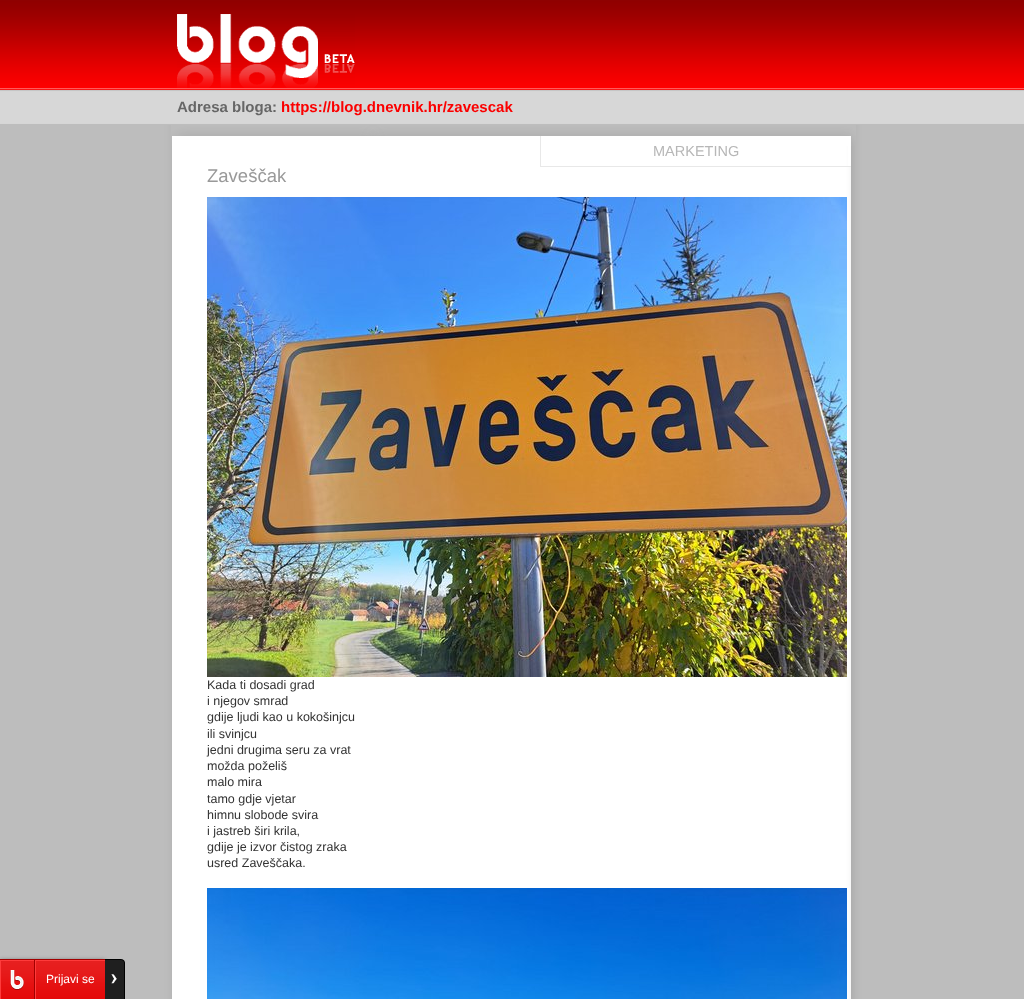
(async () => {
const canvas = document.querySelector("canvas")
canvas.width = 1024
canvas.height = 999
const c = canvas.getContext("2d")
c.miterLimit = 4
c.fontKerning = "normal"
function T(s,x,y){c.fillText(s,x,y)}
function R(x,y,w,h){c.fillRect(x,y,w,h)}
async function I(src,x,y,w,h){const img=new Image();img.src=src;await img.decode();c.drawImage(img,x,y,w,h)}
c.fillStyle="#bdbdbd"
R(0,0,1024,999)
await I("1.png",0,0,1024,124)
await I("2.png",177,14,178,74)
c.font="bold 15px Liberation Sans"
c.fillStyle="#666"
T("Adresa bloga:",177,112)
c.fillStyle="#fb0000"
T("https://blog.dnevnik.hr/zavescak",281,112)
await I("3.png",162,125,700,874)
await I("4.png",171,125,685,21)
c.fillStyle="#fff"
R(848,146,3,20)
c.fillStyle="#e8e8e8"
R(540,166,311,1)
R(540,136,1,31)
c.font="14.5px Liberation Sans"
c.fillStyle="#b7b7b7"
T("MARKETING",653,156)
c.font="18.5px Liberation Sans"
c.fillStyle="#999"
T("Zaveščak",207,182)
await I("5.png",207,197,640,480)
c.font="12.5px Liberation Sans"
c.fillStyle="#333"
T("Kada ti dosadi grad",207,689)
T("i njegov smrad",207,705)
T("gdije ljudi kao u kokošinjcu",207,721)
T("ili svinjcu",207,738)
T("jedni drugima seru za vrat",207,754)
T("možda poželiš",207,770)
T("malo mira",207,786)
T("tamo gdje vjetar",207,803)
T("himnu slobode svira",207,819)
T("i jastreb širi krila,",207,835)
T("gdije je izvor čistog zraka",207,851)
T("usred Zaveščaka.",207,867)
await I("6.png",207,888,640,111)
c.filter="blur(2.5px)"
c.beginPath()
c.rect(0,961,105,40)
c.fill()
c.filter="none"
await I("7.png",0,959,105,40)
await I("8.png",0,960,36,39)
c.font="12px Liberation Sans"
c.fillStyle="#fff"
T("Prijavi se",46,983)
await I("9.png",105,959,20,40)
})()
